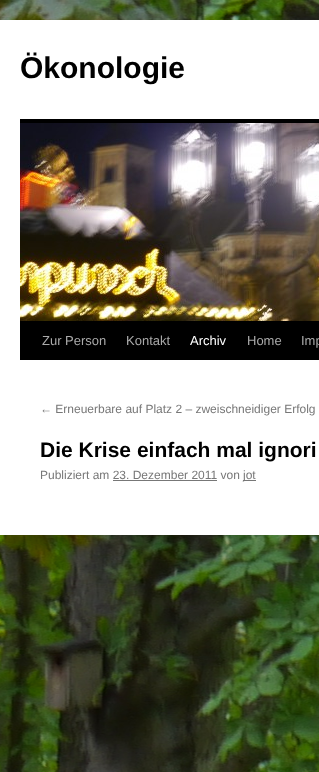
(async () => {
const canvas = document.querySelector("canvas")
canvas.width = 319
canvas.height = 772
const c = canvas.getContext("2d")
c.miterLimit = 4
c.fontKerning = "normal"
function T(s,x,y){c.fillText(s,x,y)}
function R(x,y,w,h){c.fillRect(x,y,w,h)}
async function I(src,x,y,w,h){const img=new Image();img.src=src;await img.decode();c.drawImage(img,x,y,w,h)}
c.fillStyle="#fff"
R(0,0,319,772)
await I("1.png",0,0,319,772)
R(0,20,319,515)
c.font="bold 30px Liberation Sans"
c.fillStyle="#000"
T("Ökonologie",20,78)
R(20,119,299,4)
R(20,321,299,39)
await I("2.png",20,123,299,198)
c.font="13px Liberation Sans"
c.fillStyle="#aaa"
T("Zur Person",42,345)
T("Kontakt",126,345)
c.fillStyle="#fff"
T("Archiv",190,345)
c.fillStyle="#aaa"
T("Home",247,345)
T("Imp",301,345)
c.font="12px Liberation Sans"
c.fillStyle="#777"
T("← Erneuerbare auf Platz 2 – zweischneidiger Erfolg",40,413)
c.font="bold 21px Liberation Sans"
c.fillStyle="#000"
T("Die Krise einfach mal ignori",40,457)
c.font="12px Liberation Sans"
c.fillStyle="#777"
T("Publiziert am 23. Dezember 2011 von",40,479)
R(243,480,13,1)
T("jot",243,479)
R(113,480,104,1)
})()
